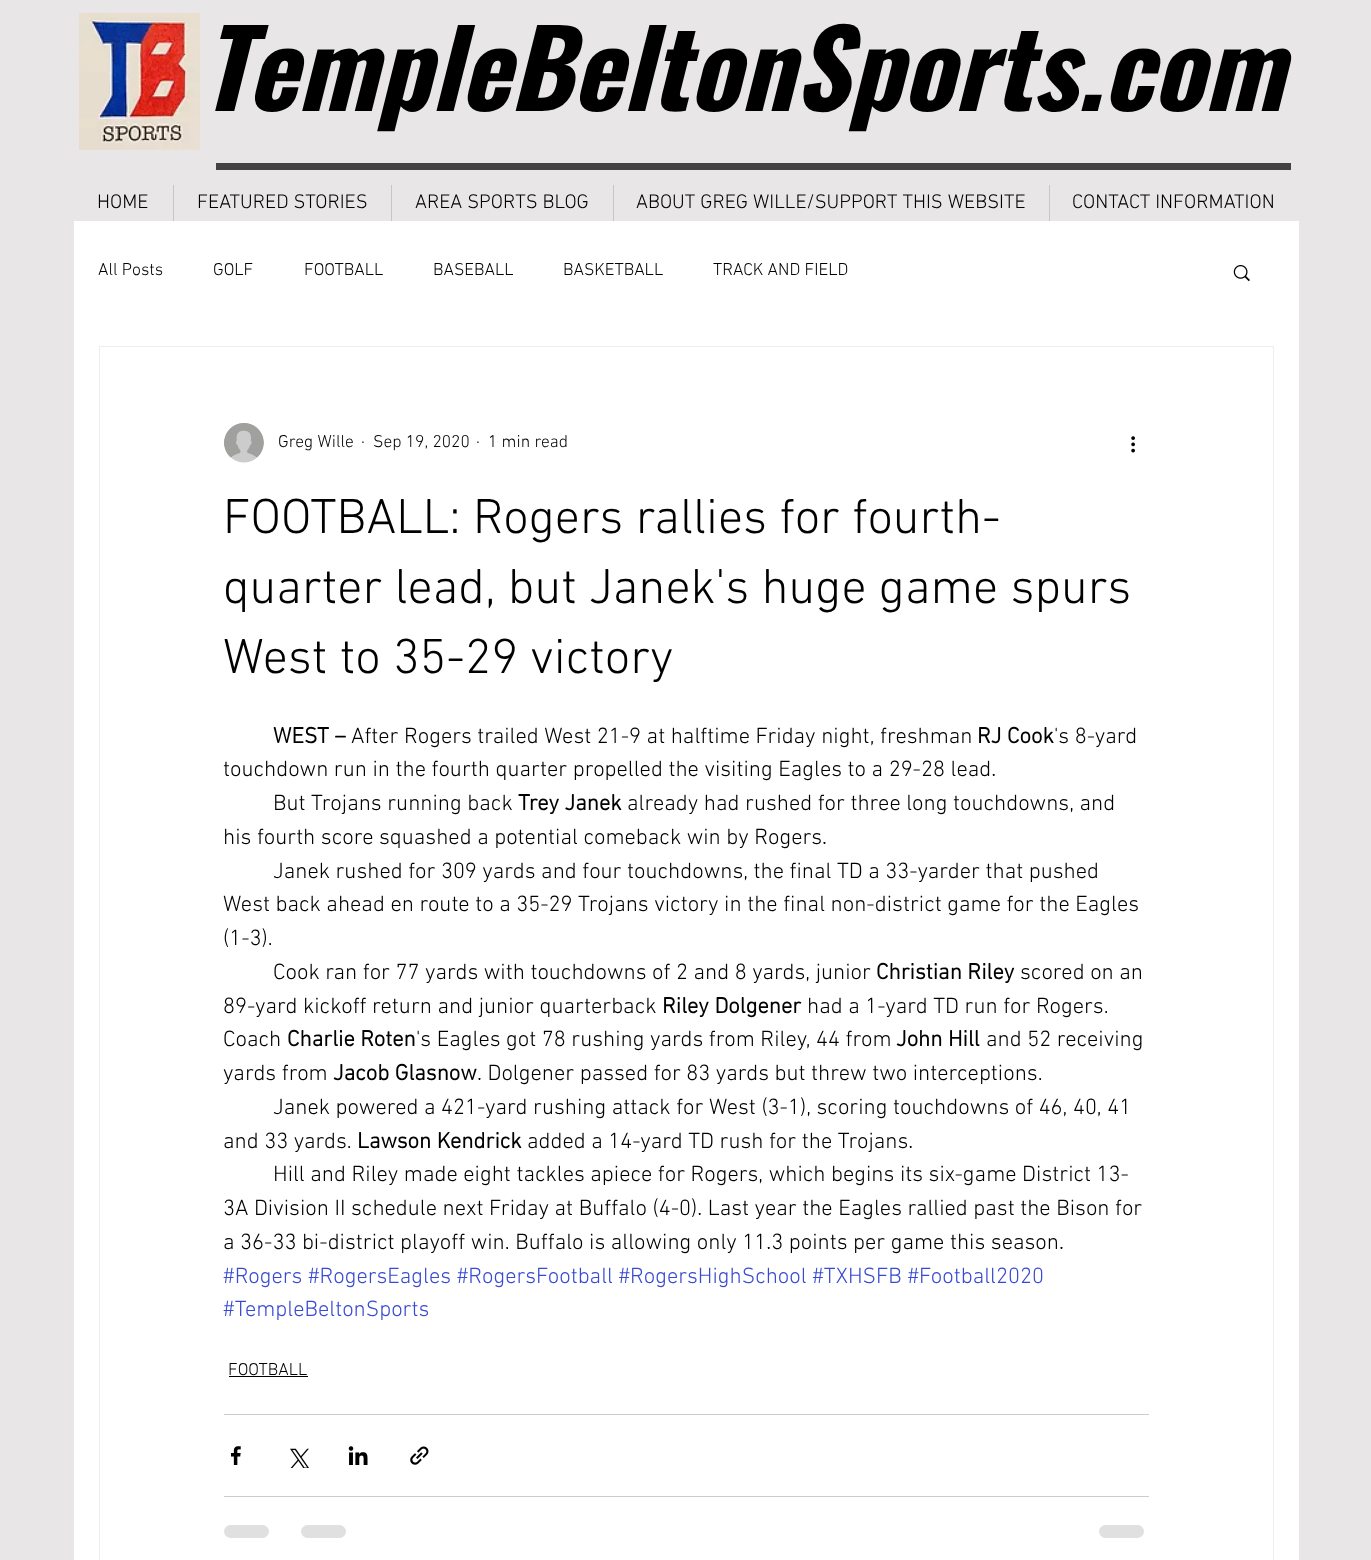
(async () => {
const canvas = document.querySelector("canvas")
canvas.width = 1371
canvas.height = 1560
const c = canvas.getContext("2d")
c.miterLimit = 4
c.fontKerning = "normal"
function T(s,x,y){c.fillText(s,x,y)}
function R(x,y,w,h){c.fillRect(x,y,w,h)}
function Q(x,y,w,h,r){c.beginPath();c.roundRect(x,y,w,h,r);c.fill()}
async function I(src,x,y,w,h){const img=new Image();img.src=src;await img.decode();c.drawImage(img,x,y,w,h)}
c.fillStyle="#e8e6e6"
R(0,0,1371,1560)
await I("1.png",79,13,121,137)
c.font="italic bold 106.25px Oswald"
c.fillStyle="#000"
T("TempleBeltonSports.com",201,111)
c.fillStyle="#424242"
R(216,163,1075,7)
c.font="300 20px 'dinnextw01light'"
c.fillStyle="#000"
T("HOME",97,208)
c.fillStyle="#c7c7c7"
R(173,185,1,36)
c.fillStyle="#000"
T("FEATURED STORIES",197,208)
c.fillStyle="#c7c7c7"
R(391,185,1,36)
c.fillStyle="#000"
T("AREA SPORTS BLOG",415,208)
c.fillStyle="#c7c7c7"
R(613,185,1,36)
c.fillStyle="#000"
T("ABOUT GREG WILLE/SUPPORT THIS WEBSITE",636,208)
c.fillStyle="#c7c7c7"
R(1049,185,1,36)
c.fillStyle="#000"
T("CONTACT INFORMATION",1072,208)
c.fillStyle="#fff"
R(74,221,1225,1339)
c.font="300 17.5px 'dinnextw01light'"
c.fillStyle="#000"
T("All Posts",98,275)
T("GOLF",213,275)
T("FOOTBALL",304,275)
T("BASEBALL",433,275)
T("BASKETBALL",563,275)
T("TRACK AND FIELD",713,275)
await I("2.png",1233,265,17,17)
c.strokeStyle="#eeecec"
c.strokeRect(99.5,346.5,1174,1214)
await I("3.png",224,423,40,40)
T("Greg Wille",278,447)
T("·",361,447)
T("Sep 19, 2020",373,447)
T("·",476,447)
T("1 min read",488,447)
await I("4.png",1131,436,4,17)
c.font="300 50px 'dinnextw01light'"
T("FOOTBALL: Rogers rallies for fourth-",223,533)
T("quarter lead, but Janek's huge game spurs",223,603)
T("West to 35-29 victory",223,673)
c.font="bold 22.5px 'dinnextw01light'"
T("WEST –",273,743)
c.font="300 22.5px 'dinnextw01light'"
T("After Rogers trailed West 21-9 at halftime Friday night, freshman",351,743)
c.font="bold 22.5px 'dinnextw01light'"
T("RJ Cook",977,743)
c.font="300 22.5px 'dinnextw01light'"
T("'s 8-yard",1054,743)
T("touchdown run in the fourth quarter propelled the visiting Eagles to a 29-28 lead.",223,776)
T("But Trojans running back",273,810)
c.font="bold 22.5px 'dinnextw01light'"
T("Trey Janek",518,810)
c.font="300 22.5px 'dinnextw01light'"
T("already had rushed for three long touchdowns, and",627,810)
T("his fourth score squashed a potential comeback win by Rogers.",223,844)
T("Janek rushed for 309 yards and four touchdowns, the final TD a 33-yarder that pushed",273,878)
T("West back ahead en route to a 35-29 Trojans victory in the final non-district game for the Eagles",223,911)
T("(1-3).",223,945)
T("Cook ran for 77 yards with touchdowns of 2 and 8 yards, junior",273,979)
c.font="bold 22.5px 'dinnextw01light'"
T("Christian Riley",876,979)
c.font="300 22.5px 'dinnextw01light'"
T("scored on an",1020,979)
T("89-yard kickoff return and junior quarterback",223,1013)
c.font="bold 22.5px 'dinnextw01light'"
T("Riley Dolgener",662,1013)
c.font="300 22.5px 'dinnextw01light'"
T("had a 1-yard TD run for Rogers.",807,1013)
T("Coach",223,1046)
c.font="bold 22.5px 'dinnextw01light'"
T("Charlie Roten",287,1046)
c.font="300 22.5px 'dinnextw01light'"
T("'s Eagles got 78 rushing yards from Riley, 44 from",416,1046)
c.font="bold 22.5px 'dinnextw01light'"
T("John Hill",896,1046)
c.font="300 22.5px 'dinnextw01light'"
T("and 52 receiving",986,1046)
T("yards from",223,1080)
c.font="bold 22.5px 'dinnextw01light'"
T("Jacob Glasnow",333,1080)
c.font="300 22.5px 'dinnextw01light'"
T(". Dolgener passed for 83 yards but threw two interceptions.",477,1080)
T("Janek powered a 421-yard rushing attack for West (3-1), scoring touchdowns of 46, 40, 41",273,1114)
T("and 33 yards.",223,1148)
c.font="bold 22.5px 'dinnextw01light'"
T("Lawson Kendrick",357,1148)
c.font="300 22.5px 'dinnextw01light'"
T("added a 14-yard TD rush for the Trojans.",527,1148)
T("Hill and Riley made eight tackles apiece for Rogers, which begins its six-game District 13-",273,1181)
T("3A Division II schedule next Friday at Buffalo (4-0). Last year the Eagles rallied past the Bison for",223,1215)
T("a 36-33 bi-district playoff win. Buffalo is allowing only 11.3 points per game this season.",223,1249)
c.fillStyle="#384ad3"
T("#Rogers #RogersEagles #RogersFootball #RogersHighSchool #TXHSFB #Football2020",223,1283)
T("#TempleBeltonSports",223,1316)
c.font="300 17.5px 'dinnextw01light'"
c.fillStyle="#000"
T("FOOTBALL",228,1375)
R(229,1376,79,1)
c.fillStyle="#ccc"
R(224,1414,925,1)
await I("5.png",231,1446,10,19)
await I("6.png",290,1448,19,20)
await I("7.png",348,1446,20,19)
await I("8.png",410,1446,19,19)
R(224,1496,925,1)
c.fillStyle="#e0e0e0"
Q(224,1525,45,13,6.5)
Q(301,1525,45,13,6.5)
Q(1099,1525,45,13,6.5)
})()
